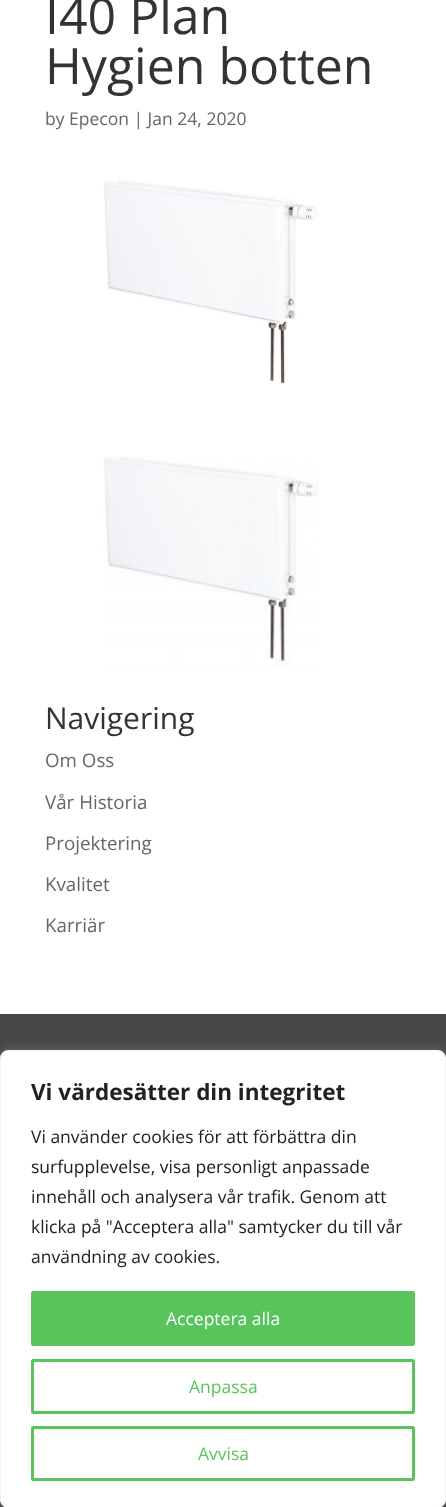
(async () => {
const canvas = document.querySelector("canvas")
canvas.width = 446
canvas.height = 1507
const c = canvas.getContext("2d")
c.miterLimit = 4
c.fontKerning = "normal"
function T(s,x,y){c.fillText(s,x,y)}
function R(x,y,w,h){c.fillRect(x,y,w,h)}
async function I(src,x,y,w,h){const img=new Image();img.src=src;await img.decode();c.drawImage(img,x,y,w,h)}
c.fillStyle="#fff"
R(0,0,446,1507)
c.font="50px Open Sans"
c.fillStyle="#333"
T("I40 Plan",45,34)
T("Hygien botten",45,84)
c.font="17.5px Open Sans"
c.fillStyle="#666"
T("by Epecon | Jan 24, 2020",45,125)
await I("1.png",103,180,216,204)
await I("2.png",103,456,216,213)
c.font="30px Open Sans"
c.fillStyle="#333"
T("Navigering",45,729)
c.font="18.75px Open Sans"
c.fillStyle="#666"
T("Om Oss",45,767)
T("Vår Historia",45,809)
T("Projektering",45,850)
T("Kvalitet",45,891)
T("Karriär",45,932)
c.fillStyle="#474747"
R(0,1014,446,493)
c.fillStyle="#acabab4d"
c.filter="blur(6px)"
c.beginPath()
c.roundRect(0,1049,446,457,8)
c.fill()
c.filter="none"
c.fillStyle="#fff"
c.beginPath()
c.roundRect(.5,1050.5,445,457,7.5)
c.fill()
c.strokeStyle="#f4f4f4"
c.stroke()
c.font="bold 22.5px Open Sans"
c.fillStyle="#212121"
T("Vi värdesätter din integritet",31,1100)
c.font="17.5px Open Sans"
T("Vi använder cookies för att förbättra din",31,1143)
T("surfupplevelse, visa personligt anpassade",31,1173)
T("innehåll och analysera vår trafik. Genom att",31,1203)
T("klicka på \"Acceptera alla\" samtycker du till vår",31,1233)
T("användning av cookies.",31,1263)
c.fillStyle="#59c45c"
c.beginPath()
c.roundRect(32.5,1292.5,381,52,1)
c.fill()
c.strokeStyle="#59c45c"
c.lineWidth=3
c.stroke()
c.fillStyle="#fff"
T("Acceptera alla",166,1325)
c.beginPath()
c.roundRect(32.5,1360.5,381,52,1)
c.stroke()
c.fillStyle="#59c45c"
T("Anpassa",189,1393)
c.beginPath()
c.roundRect(32.5,1427.5,381,52,1)
c.stroke()
T("Avvisa",198,1460)
})()
